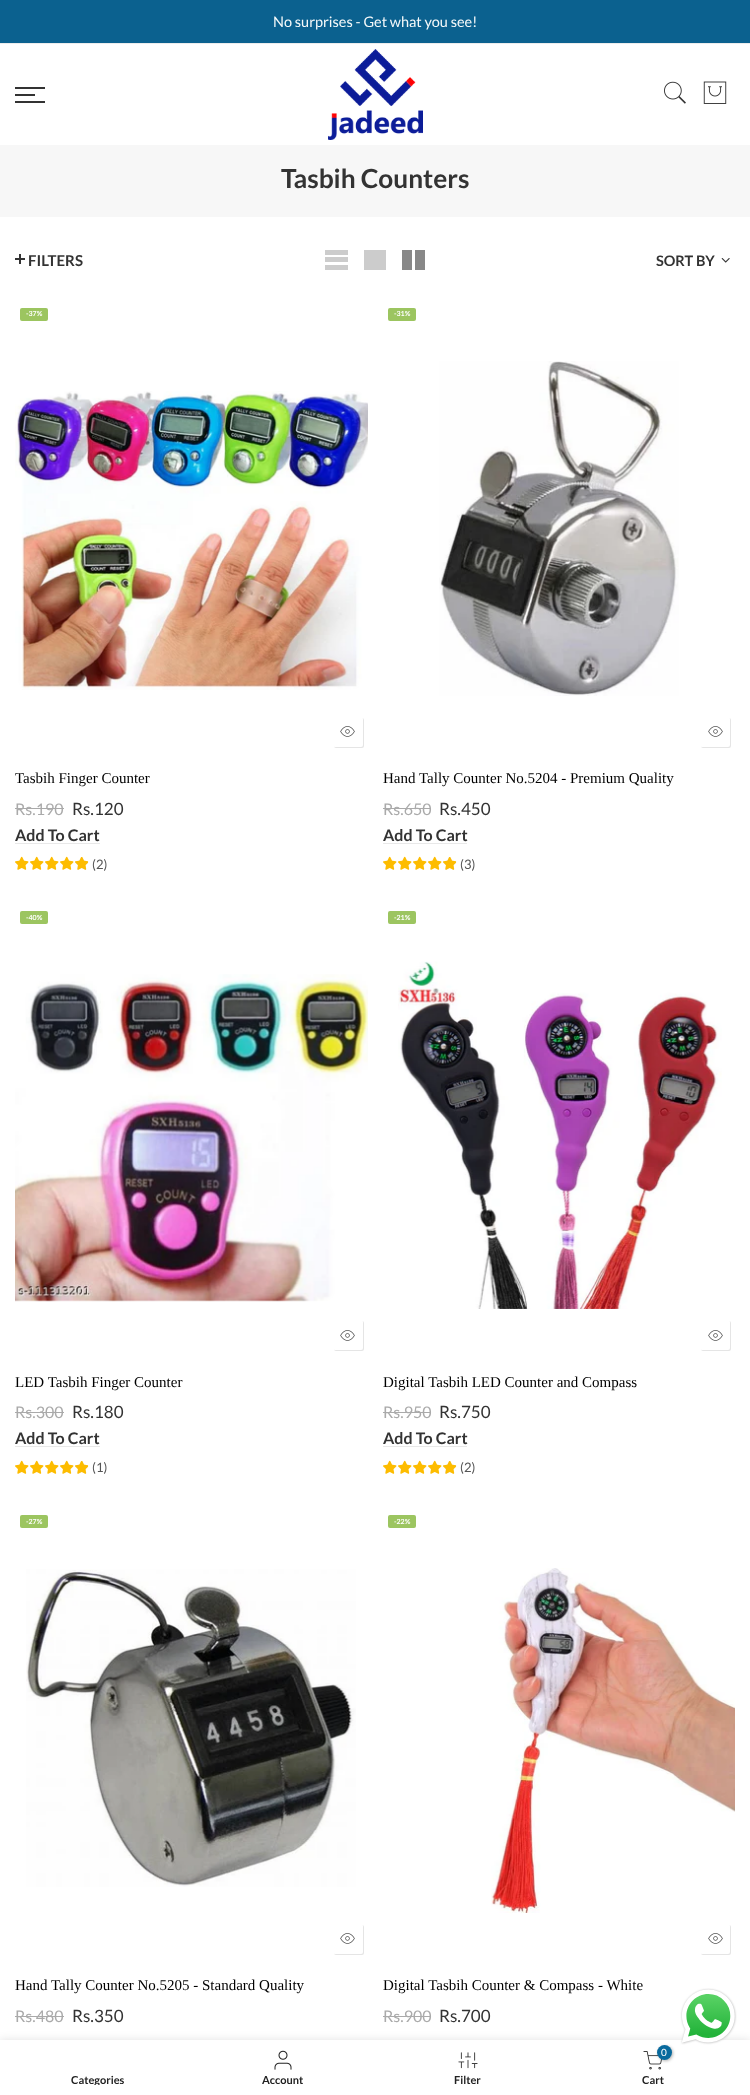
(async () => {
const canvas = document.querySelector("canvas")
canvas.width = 750
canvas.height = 2095
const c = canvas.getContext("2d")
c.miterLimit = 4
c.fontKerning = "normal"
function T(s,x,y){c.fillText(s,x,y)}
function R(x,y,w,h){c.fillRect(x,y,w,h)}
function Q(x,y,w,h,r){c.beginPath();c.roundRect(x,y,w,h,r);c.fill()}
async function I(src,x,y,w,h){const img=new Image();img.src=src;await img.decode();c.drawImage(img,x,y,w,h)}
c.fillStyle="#fff"
R(0,0,750,2095)
c.fillStyle="#0b618f"
R(0,0,750,43)
c.fillStyle="#ececec"
R(0,43,750,1)
c.font="14.5px Lato"
c.fillStyle="#f5f9fa"
T("No surprises - Get what you see!",273,27)
c.fillStyle="#333"
R(15,87,30,2)
R(15,94,20,2)
R(15,101,30,2)
await I("1.png",328,49,95,91)
await I("2.png",664,81,22,23)
await I("3.png",703,81,24,23)
c.fillStyle="#f7f7f7"
R(0,145,750,72)
c.font="bold 26.25px Lato"
c.fillStyle="#333"
T("Tasbih Counters",281,188)
R(15,258,10,2)
R(19,254,2,10)
c.font="bold 15px Lato"
T("FILTERS",28,266)
c.fillStyle="#ccc"
R(325,265,23,5)
R(325,257,23,5)
R(325,250,23,5)
R(364,250,22,20)
c.fillStyle="#888"
R(415,250,10,20)
R(402,250,10,20)
c.font="bold 14.5px Lato"
c.fillStyle="#333"
T("SORT BY",656,266)
await I("4.png",721,258,9,5)
c.fillStyle="#9cc560"
Q(20,308,28,13,2)
c.font="bold 7px Lato"
c.fillStyle="#fff"
T("-37%",26,316)
await I("5.png",15,391,353,299)
c.fillStyle="#0000001a"
c.filter="blur(0.5px)"
c.beginPath()
c.roundRect(334,718,30,30,2)
c.fill()
c.filter="none"
c.fillStyle="#fff"
Q(333,717,30,30,2)
await I("6.png",340,726,15,11)
c.font="15px Liberation Serif"
c.fillStyle="#000"
T("Tasbih Finger Counter",15,783)
c.font="16px Lato"
c.fillStyle="#aaa"
T("Rs.190",15,815)
R(15,808,49,1)
c.font="17px Lato"
c.fillStyle="#333"
T("Rs.120",72,815)
c.font="bold 16px Lato"
T("Add To Cart",15,841)
c.fillStyle="#e8e8e8"
R(15,843,85,1)
await I("7.png",15,856,14,14)
await I("7.png",30,856,14,14)
await I("7.png",45,856,14,14)
await I("7.png",60,856,14,14)
await I("8.png",75,857,14,13)
await I("9.png",75,857,13,13)
c.font="13px Lato"
c.fillStyle="#555"
T("(2)",92,869)
c.fillStyle="#9cc560"
Q(388,308,28,13,2)
c.font="bold 7px Lato"
c.fillStyle="#fff"
T("-31%",394,316)
await I("10.png",439,361,240,335)
c.fillStyle="#0000001a"
c.filter="blur(0.5px)"
c.beginPath()
c.roundRect(701,718,30,30,2)
c.fill()
c.filter="none"
c.fillStyle="#fff"
Q(700,717,30,30,2)
await I("6.png",708,726,15,11)
c.font="15px Liberation Serif"
c.fillStyle="#000"
T("Hand Tally Counter No.5204 - Premium Quality",383,783)
c.font="16px Lato"
c.fillStyle="#aaa"
T("Rs.650",383,815)
R(383,808,48,1)
c.font="17px Lato"
c.fillStyle="#333"
T("Rs.450",439,815)
c.font="bold 16px Lato"
T("Add To Cart",383,841)
c.fillStyle="#e8e8e8"
R(383,843,84,1)
await I("7.png",383,856,14,14)
await I("7.png",398,856,14,14)
await I("7.png",413,856,14,14)
await I("7.png",428,856,14,14)
await I("8.png",443,857,14,13)
await I("9.png",443,857,13,13)
c.font="13px Lato"
c.fillStyle="#555"
T("(3)",460,869)
c.fillStyle="#9cc560"
Q(20,911,28,13,2)
c.font="bold 7px Lato"
c.fillStyle="#fff"
T("-40%",26,920)
await I("11.png",15,974,353,328)
c.fillStyle="#0000001a"
c.filter="blur(0.5px)"
c.beginPath()
c.roundRect(334,1321,30,30,2)
c.fill()
c.filter="none"
c.fillStyle="#fff"
Q(333,1320,30,30,2)
await I("6.png",340,1330,15,11)
c.font="15px Liberation Serif"
c.fillStyle="#000"
T("LED Tasbih Finger Counter",15,1387)
c.font="16px Lato"
c.fillStyle="#aaa"
T("Rs.300",15,1418)
R(15,1412,49,1)
c.font="17px Lato"
c.fillStyle="#333"
T("Rs.180",72,1418)
c.font="bold 16px Lato"
T("Add To Cart",15,1444)
c.fillStyle="#e8e8e8"
R(15,1446,85,1)
await I("7.png",15,1460,14,14)
await I("7.png",30,1460,14,14)
await I("7.png",45,1460,14,14)
await I("7.png",60,1460,14,14)
await I("8.png",75,1461,14,13)
await I("9.png",75,1461,13,13)
c.font="13px Lato"
c.fillStyle="#555"
T("(1)",92,1472)
c.fillStyle="#9cc560"
Q(388,911,28,13,2)
c.font="bold 7px Lato"
c.fillStyle="#fff"
T("-21%",394,920)
await I("12.png",398,961,324,348)
c.fillStyle="#0000001a"
c.filter="blur(0.5px)"
c.beginPath()
c.roundRect(701,1321,30,30,2)
c.fill()
c.filter="none"
c.fillStyle="#fff"
Q(700,1320,30,30,2)
await I("6.png",708,1330,15,11)
c.font="15px Liberation Serif"
c.fillStyle="#000"
T("Digital Tasbih LED Counter and Compass",383,1387)
c.font="16px Lato"
c.fillStyle="#aaa"
T("Rs.950",383,1418)
R(383,1412,48,1)
c.font="17px Lato"
c.fillStyle="#333"
T("Rs.750",439,1418)
c.font="bold 16px Lato"
T("Add To Cart",383,1444)
c.fillStyle="#e8e8e8"
R(383,1446,84,1)
await I("7.png",383,1460,14,14)
await I("7.png",398,1460,14,14)
await I("7.png",413,1460,14,14)
await I("7.png",428,1460,14,14)
await I("8.png",443,1461,14,13)
await I("9.png",443,1461,13,13)
c.font="13px Lato"
c.fillStyle="#555"
T("(2)",460,1472)
c.fillStyle="#9cc560"
Q(20,1515,28,13,2)
c.font="bold 7px Lato"
c.fillStyle="#fff"
T("-27%",26,1524)
await I("13.png",26,1569,330,318)
c.fillStyle="#0000001a"
c.filter="blur(0.5px)"
c.beginPath()
c.roundRect(334,1925,30,30,2)
c.fill()
c.filter="none"
c.fillStyle="#fff"
Q(333,1924,30,30,2)
await I("6.png",340,1933,15,11)
c.font="15px Liberation Serif"
c.fillStyle="#000"
T("Hand Tally Counter No.5205 - Standard Quality",15,1990)
c.font="16px Lato"
c.fillStyle="#aaa"
T("Rs.480",15,2022)
R(15,2016,49,1)
c.font="17px Lato"
c.fillStyle="#333"
T("Rs.350",72,2022)
c.fillStyle="#9cc560"
Q(388,1515,28,13,2)
c.font="bold 7px Lato"
c.fillStyle="#fff"
T("-22%",394,1524)
await I("14.png",491,1568,244,345)
c.fillStyle="#0000001a"
c.filter="blur(0.5px)"
c.beginPath()
c.roundRect(701,1925,30,30,2)
c.fill()
c.filter="none"
c.fillStyle="#fff"
Q(700,1924,30,30,2)
await I("6.png",708,1933,15,11)
c.font="15px Liberation Serif"
c.fillStyle="#000"
T("Digital Tasbih Counter & Compass - White",383,1990)
c.font="16px Lato"
c.fillStyle="#aaa"
T("Rs.900",383,2022)
R(383,2016,48,1)
c.font="17px Lato"
c.fillStyle="#333"
T("Rs.700",439,2022)
c.fillStyle="#0000001f"
c.filter="blur(4.5px)"
c.beginPath()
c.rect(0,2040,750,55)
c.fill()
c.filter="none"
c.fillStyle="#fff"
R(0,2040,750,55)
await I("15.png",680,1988,57,57)
c.save()
c.beginPath()
c.rect(15,2074,165,11)
c.clip()
c.font="bold 11px Lato"
c.fillStyle="#222"
T("Categories",71,2084)
c.restore()
await I("16.png",274,2050,18,20)
c.font="bold 11px Lato"
c.fillStyle="#222"
T("Account",262,2084)
await I("17.png",458,2052,20,17)
T("Filter",454,2084)
await I("18.png",643,2051,19,19)
c.fillStyle="#0000004d"
c.filter="blur(1.5px)"
c.beginPath()
c.roundRect(658,2046,15,15,7.5)
c.fill()
c.filter="none"
c.fillStyle="#086a9d"
c.beginPath()
c.arc(664.5,2052.5,7.5,0,7)
c.fill()
c.font="10px Lato"
c.fillStyle="#fff"
T("0",661,2056)
c.font="bold 11px Lato"
c.fillStyle="#222"
T("Cart",642,2084)
})()
